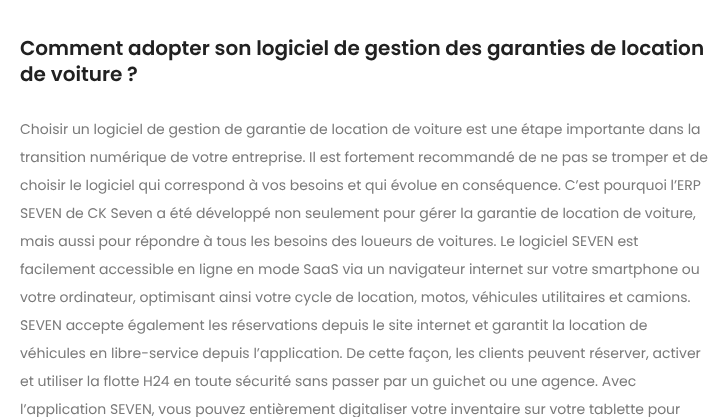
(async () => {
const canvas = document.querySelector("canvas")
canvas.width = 728
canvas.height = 417
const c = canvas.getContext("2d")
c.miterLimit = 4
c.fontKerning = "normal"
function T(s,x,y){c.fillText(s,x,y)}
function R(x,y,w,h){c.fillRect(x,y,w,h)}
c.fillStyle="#fff"
R(0,0,728,417)
c.font="600 20px Poppins"
c.fillStyle="#212121"
T("Comment adopter son logiciel de gestion des garanties de location",20,55)
T("de voiture ?",20,81)
c.font="14px Poppins"
c.fillStyle="#7a7a7a"
T("Choisir un logiciel de gestion de garantie de location de voiture est une étape importante dans la",20,134)
T("transition numérique de votre entreprise. Il est fortement recommandé de ne pas se tromper et de",20,162)
T("choisir le logiciel qui correspond à vos besoins et qui évolue en conséquence. C’est pourquoi l’ERP",20,190)
T("SEVEN de CK Seven a été développé non seulement pour gérer la garantie de location de voiture,",20,218)
T("mais aussi pour répondre à tous les besoins des loueurs de voitures. Le logiciel SEVEN est",20,246)
T("facilement accessible en ligne en mode SaaS via un navigateur internet sur votre smartphone ou",20,274)
T("votre ordinateur, optimisant ainsi votre cycle de location, motos, véhicules utilitaires et camions.",20,302)
T("SEVEN accepte également les réservations depuis le site internet et garantit la location de",20,330)
T("véhicules en libre-service depuis l’application. De cette façon, les clients peuvent réserver, activer",20,358)
T("et utiliser la flotte H24 en toute sécurité sans passer par un guichet ou une agence. Avec",20,386)
T("l’application SEVEN, vous pouvez entièrement digitaliser votre inventaire sur votre tablette pour",20,414)
})()
